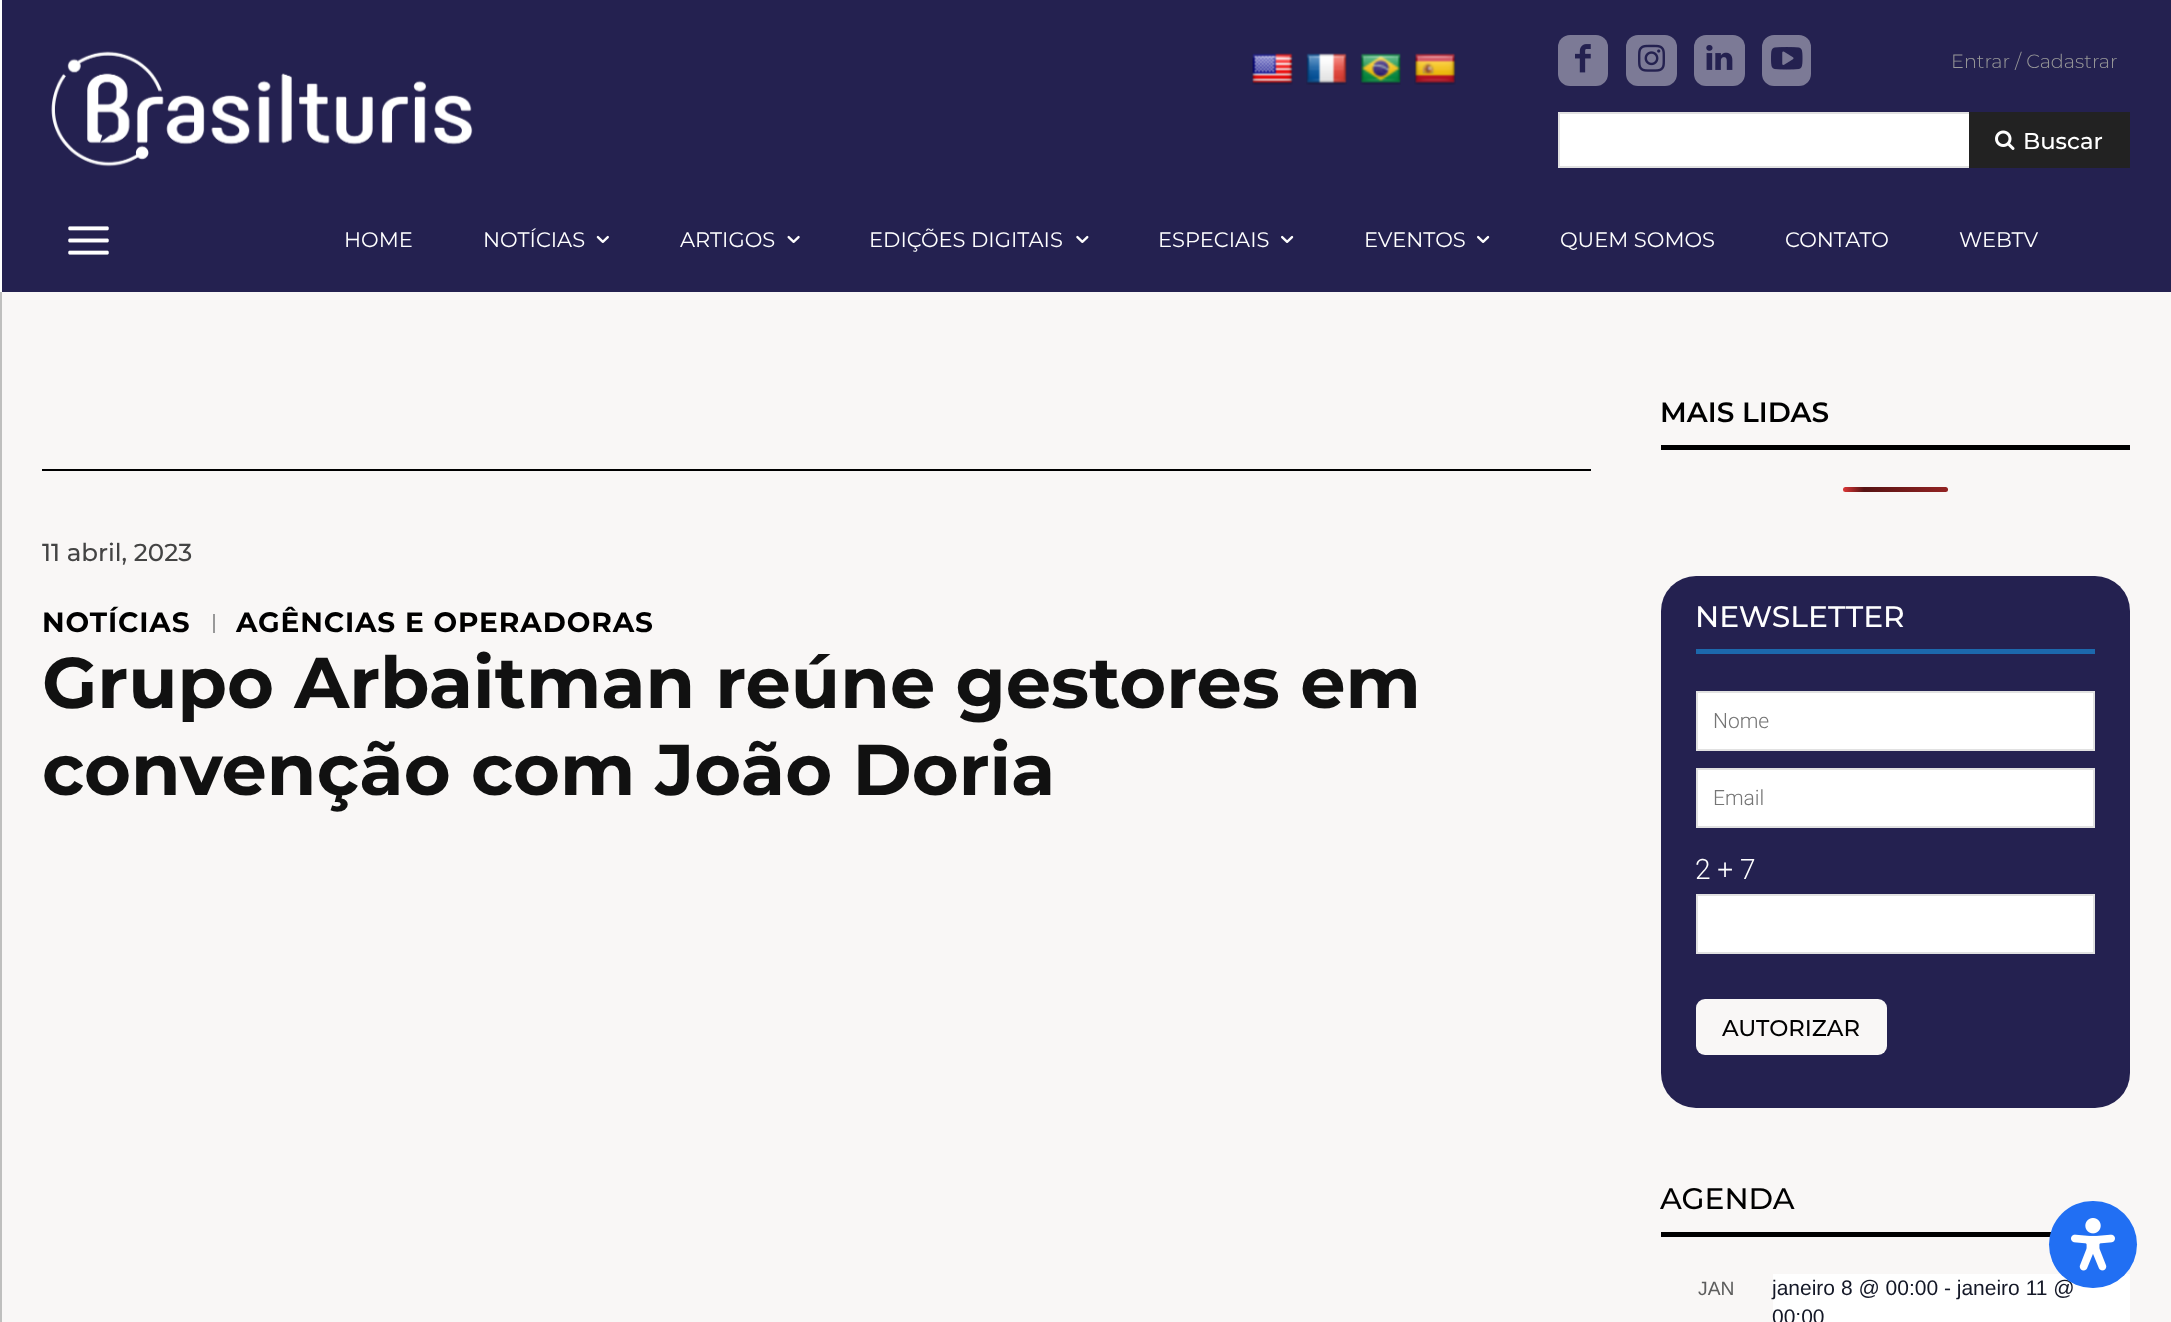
(async () => {
const canvas = document.querySelector("canvas")
canvas.width = 2171
canvas.height = 1322
const c = canvas.getContext("2d")
c.miterLimit = 4
c.fontKerning = "normal"
function T(s,x,y){c.fillText(s,x,y)}
function R(x,y,w,h){c.fillRect(x,y,w,h)}
function Q(x,y,w,h,r){c.beginPath();c.roundRect(x,y,w,h,r);c.fill()}
async function I(src,x,y,w,h){const img=new Image();img.src=src;await img.decode();c.drawImage(img,x,y,w,h)}
let gradient
c.fillStyle="#fff"
R(0,0,2171,1322)
c.fillStyle="#242150"
R(2,0,2169,292)
await I("1.png",51,51,422,116)
await I("2.png",1252,53,41,32)
await I("3.png",1306,53,41,32)
await I("4.png",1360,53,41,32)
await I("5.png",1414,53,42,32)
c.fillStyle="#7c7a96"
Q(1558,35,50,51,12)
await I("6.png",1575,44,16,29)
Q(1626,35,51,51,12)
await I("7.png",1638,44,27,28)
Q(1694,35,51,51,12)
await I("8.png",1706,45,27,25)
Q(1762,35,49,51,12)
await I("9.png",1771,47,32,23)
c.font="300 19.25px Montserrat"
c.fillStyle="#999"
T("Entrar / Cadastrar",1951,68)
c.fillStyle="#fff"
R(1560,114,409,52)
c.strokeStyle="#e1e1e1"
c.lineWidth=2
c.strokeRect(1559,113,570,54)
c.fillStyle="#222"
R(1969,112,161,56)
await I("10.png",1995,130,20,20)
c.font="500 22.75px Montserrat"
c.fillStyle="#fff"
T("Buscar",2023,149)
await I("11.png",68,226,41,29)
c.font="21px Montserrat"
T("HOME",344,247)
T("NOTÍCIAS",483,247)
await I("12.png",596,235,13,8)
T("ARTIGOS",680,247)
await I("13.png",787,235,13,8)
T("EDIÇÕES DIGITAIS",869,247)
await I("14.png",1076,235,13,8)
T("ESPECIAIS",1158,247)
await I("15.png",1281,235,13,8)
T("EVENTOS",1364,247)
await I("15.png",1477,235,13,8)
T("QUEM SOMOS",1560,247)
T("CONTATO",1785,247)
T("WEBTV",1959,247)
c.fillStyle="#bfbfbe"
R(0,292,2,1030)
c.fillStyle="#f9f7f6"
R(2,292,2169,1030)
c.fillStyle="#000"
R(42,469,1549,2)
c.font="500 24.5px Montserrat"
c.fillStyle="#444"
T("11 abril, 2023",42,561)
c.letterSpacing="0.9px"
c.font="bold 28px Montserrat"
c.fillStyle="#000"
T("NOTÍCIAS",42,632)
c.fillStyle="#999"
R(213,614,2,19)
c.fillStyle="#000"
T("AGÊNCIAS E OPERADORAS",236,632)
c.letterSpacing="0px"
c.font="bold 71.75px Montserrat"
c.fillStyle="#111"
T("Grupo Arbaitman reúne gestores em",42,708)
T("convenção com João Doria",42,795)
c.font="600 28px Montserrat"
c.fillStyle="#000"
T("MAIS LIDAS",1660,422)
R(1661,445,469,5)
gradient = c.createLinearGradient(1843,489,2053,489)
gradient.addColorStop(0,"#dd3737")
gradient.addColorStop(.1,"#571313")
gradient.addColorStop(1,"#dd3737")
c.fillStyle = gradient
Q(1843,487,105,5,2.5)
c.fillStyle="#242150"
Q(1661,576,469,532,35)
c.font="500 29.75px Montserrat"
c.fillStyle="#fff"
T("NEWSLETTER",1695,627)
c.fillStyle="#1c68ac"
R(1696,649,399,5)
c.fillStyle="#fff"
c.beginPath()
c.rect(1697,692,397,58)
c.fill()
c.stroke()
c.font="300 21px Roboto"
c.fillStyle="#757575"
T("Nome",1713,728)
c.fillStyle="#fff"
c.beginPath()
c.rect(1697,769,397,58)
c.fill()
c.stroke()
c.fillStyle="#757575"
T("Email",1713,805)
c.font="300 28px Roboto"
c.fillStyle="#fff"
T("2 + 7",1695,879)
c.beginPath()
c.rect(1697,895,397,58)
c.fill()
c.stroke()
c.fillStyle="#f9f7f6"
Q(1696,999,191,56,9)
c.font="500 22.75px Montserrat"
c.fillStyle="#000"
T("AUTORIZAR",1722,1036)
c.font="500 29.75px Montserrat"
T("AGENDA",1660,1209)
R(1661,1232,390,5)
c.font="19.25px Liberation Sans"
c.fillStyle="#5d5d5d"
T("JAN",1698,1295)
c.fillStyle="#fff"
R(1773,1274,357,48)
c.font="21px Liberation Sans"
c.fillStyle="#141827"
T("janeiro 8 @ 00:00 - janeiro 11 @",1772,1295)
T("00:00",1772,1324)
c.fillStyle="#216ff3"
Q(2049,1201,88,87,43.5)
await I("16.png",2071,1218,44,53)
})()
